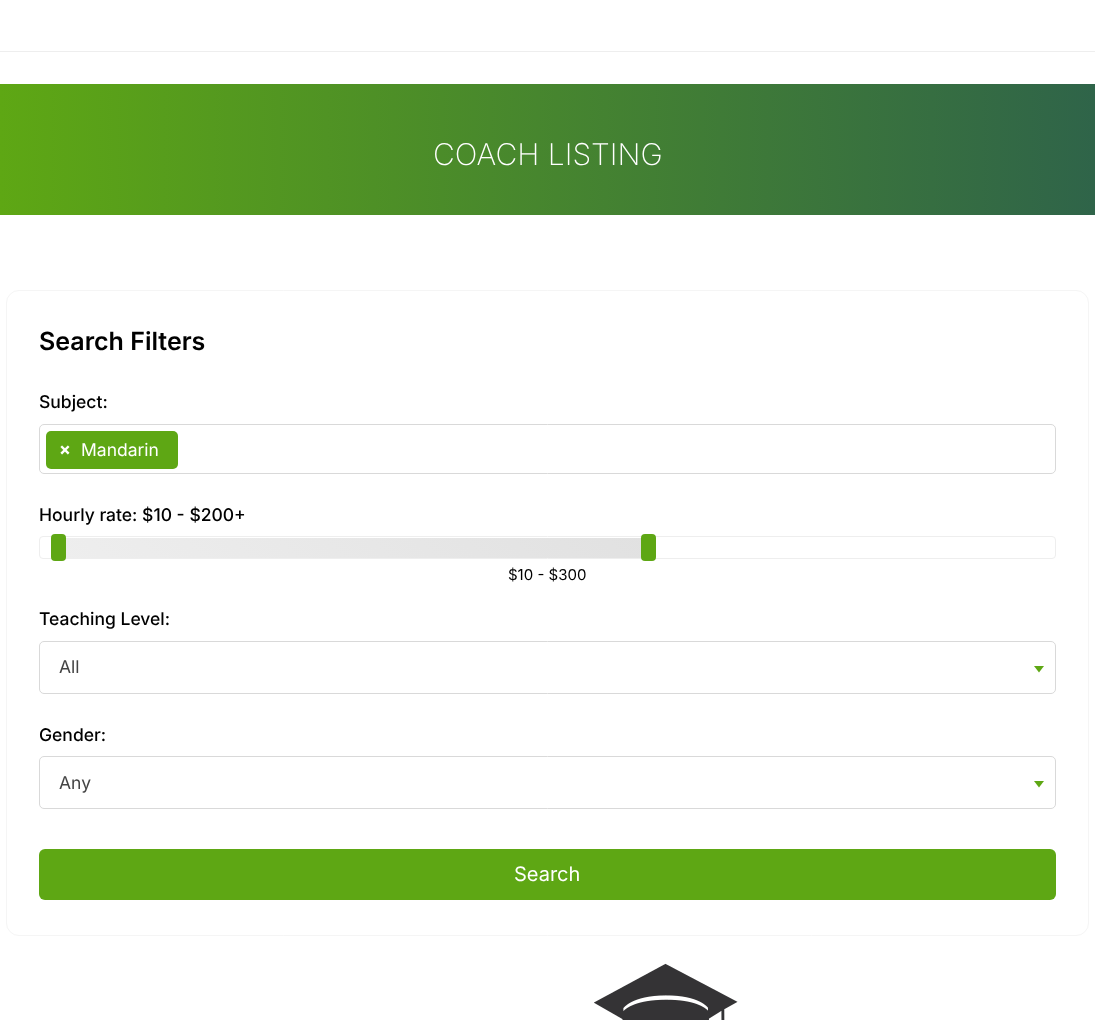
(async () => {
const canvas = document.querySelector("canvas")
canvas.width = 1095
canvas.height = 1020
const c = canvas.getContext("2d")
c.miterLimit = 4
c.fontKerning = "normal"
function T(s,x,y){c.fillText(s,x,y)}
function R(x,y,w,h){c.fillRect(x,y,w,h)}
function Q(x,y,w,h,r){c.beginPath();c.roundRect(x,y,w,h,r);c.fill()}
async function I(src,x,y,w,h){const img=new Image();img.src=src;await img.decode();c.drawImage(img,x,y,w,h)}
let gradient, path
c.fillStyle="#fff"
R(0,0,1095,1020)
c.fillStyle="#eee"
R(0,51,1095,1)
gradient = c.createLinearGradient(0,149,1095,149)
gradient.addColorStop(0,"#5ea714")
gradient.addColorStop(1,"#2f6449")
c.fillStyle = gradient
R(0,84,1095,131)
c.font="200 30px Inter"
c.fillStyle="#fff"
T("COACH LISTING",433,165)
c.beginPath()
c.roundRect(6.5,290.5,1082,645,12.5)
c.strokeStyle="#f5f5f5"
c.stroke()
c.font="600 25px Inter"
c.fillStyle="#000"
T("Search Filters",39,350)
c.font="500 17.5px Inter"
T("Subject:",39,408)
c.beginPath()
c.roundRect(39.5,424.5,1016,49,4.5)
c.strokeStyle="#d9d9d9"
c.stroke()
c.fillStyle="#5ea714"
Q(46,431,132,38,5)
c.font="bold 17.5px Inter"
c.fillStyle="#fff"
T("×",59,455)
c.font="17.5px Inter"
T("Mandarin",81,456)
c.font="500 17.5px Inter"
c.fillStyle="#000"
T("Hourly rate: $10 - $200+",39,521)
c.beginPath()
c.roundRect(39.5,536.5,1016,22,3.5)
c.strokeStyle="#eee"
c.stroke()
gradient = c.createLinearGradient(201,700,506,395)
gradient.addColorStop(0,"#eee")
gradient.addColorStop(1,"#e1e1e1")
c.fillStyle = gradient
R(65,538,577,20)
c.fillStyle="#5ea714"
Q(51,534,15,27,4)
Q(641,534,15,27,4)
c.font="15px Inter"
c.fillStyle="#000"
T("$10 - $300",508,580)
c.font="500 17.5px Inter"
T("Teaching Level:",39,625)
c.beginPath()
c.roundRect(39.5,641.5,1016,52,4.5)
c.strokeStyle="#d9d9d9"
c.stroke()
c.font="17.5px Inter"
c.fillStyle="#444"
T("All",59,673)
c.fillStyle="#5ea714"
path = new Path2D("M1034 666h10l-5 6.5z")
c.fill(path)
c.font="500 17.5px Inter"
c.fillStyle="#000"
T("Gender:",39,741)
c.beginPath()
c.roundRect(39.5,756.5,1016,52,4.5)
c.stroke()
c.font="17.5px Inter"
c.fillStyle="#444"
T("Any",59,789)
c.fillStyle="#5ea714"
path = new Path2D("M1034 781h10l-5 6.5z")
c.fill(path)
Q(39,849,1017,51,6)
c.font="20px Inter"
c.fillStyle="#fff"
T("Search",514,881)
await I("1.png",594,963,144,57)
})()
